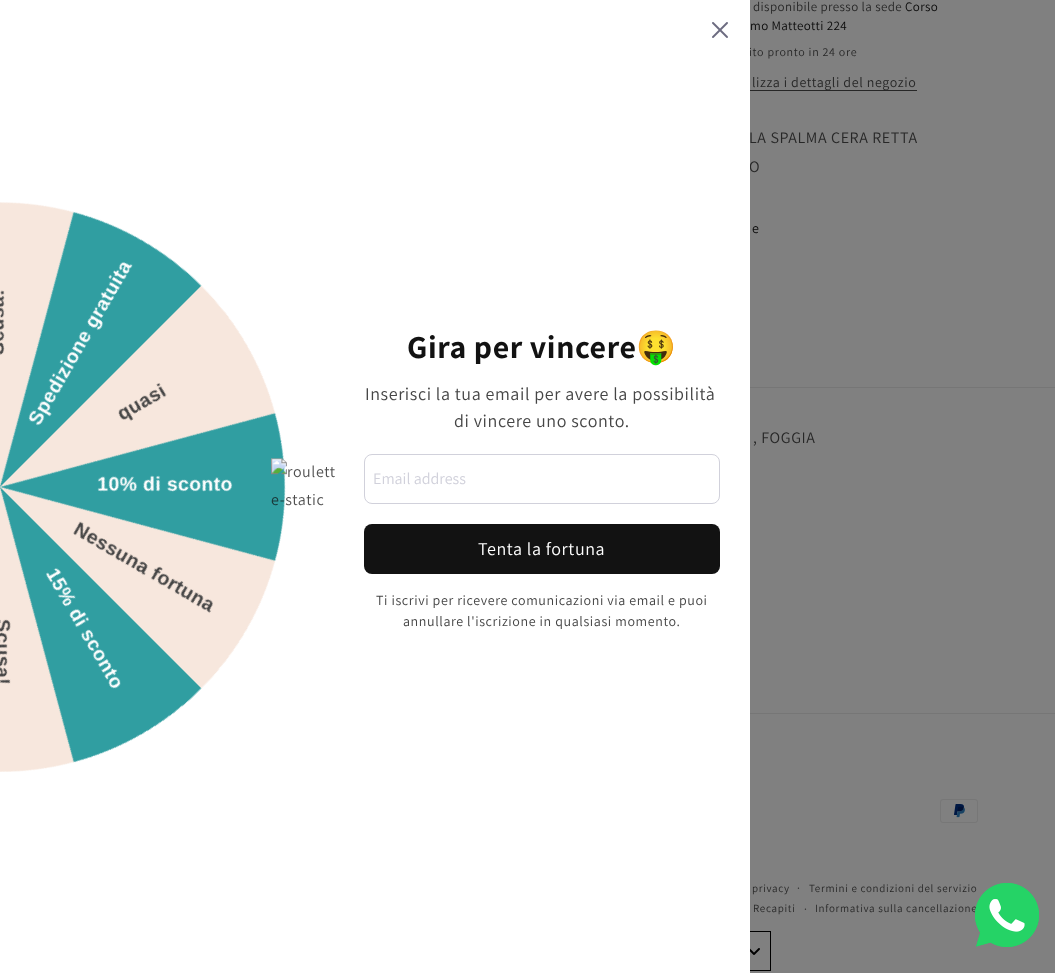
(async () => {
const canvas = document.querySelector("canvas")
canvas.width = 1055
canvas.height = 973
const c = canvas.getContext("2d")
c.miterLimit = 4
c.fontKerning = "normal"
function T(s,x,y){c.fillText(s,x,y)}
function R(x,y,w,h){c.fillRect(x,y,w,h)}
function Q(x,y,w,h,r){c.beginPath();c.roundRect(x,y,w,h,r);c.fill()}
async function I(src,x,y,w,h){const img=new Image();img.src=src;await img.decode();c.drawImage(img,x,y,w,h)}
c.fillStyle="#808080"
R(0,0,1055,973)
c.letterSpacing="0.4px"
c.font="13px Assistant"
c.fillStyle="#272727"
T("disponibile presso la sede",753,11)
c.fillStyle="#090909"
T("Corso",905,11)
T("mo Matteotti 224",750,30)
c.letterSpacing="0.7px"
c.font="12px Assistant"
c.fillStyle="#272727"
T("ito pronto in 24 ore",749,56)
R(750,90,167,1)
c.letterSpacing="0.6px"
c.font="14px Assistant"
T("lizza i dettagli del negozio",752,87)
c.font="16px Assistant"
T("LA SPALMA CERA RETTA",749,143)
T("O",749,172)
c.font="14px Assistant"
c.fillStyle="#090909"
T("e",752,233)
await I("5.png",750,948,10,7)
c.strokeStyle="#000"
c.strokeRect(533.5,931.5,237,39)
c.fillStyle="#fff"
R(0,0,750,973)
await I("1.png",712,22,16,16)
await I("2.png",0,202,286,570)
await I("3.png",271,458,64,48)
c.font="bold 32px Assistant"
c.fillStyle="#121212"
T("Gira per vincere",407,358)
c.font="bold 32px Noto Color Emoji"
T("🤑",636,358)
c.font="18px Assistant"
c.fillStyle="#454545"
T("Inserisci la tua email per avere la possibilità",365,400)
T("di vincere uno sconto.",454,427)
c.beginPath()
c.roundRect(364.5,454.5,355,49,7.5)
c.strokeStyle="#d1d1db"
c.stroke()
c.letterSpacing="0px"
c.font="16px Assistant"
c.fillStyle="#d1d1db"
T("Email address",373,484)
c.fillStyle="#121212"
Q(364,524,356,50,8)
c.letterSpacing="0.6px"
c.font="18px Assistant"
c.fillStyle="#fff"
T("Tenta la fortuna",478,555)
c.font="14px Assistant"
c.fillStyle="#454545"
T("Ti iscrivi per ricevere comunicazioni via email e puoi",376,605)
T("annullare l'iscrizione in qualsiasi momento.",403,626)
c.fillStyle="#767676"
R(750,387,305,1)
c.font="16px Assistant"
c.fillStyle="#272727"
T(", FOGGIA",753,443)
c.fillStyle="#767676"
R(750,713,305,1)
await I("4.png",940,799,38,24)
c.letterSpacing="0.7px"
c.font="11px Assistant"
c.fillStyle="#272727"
T("privacy",752,892)
c.font="12px Assistant"
T("·",797,892)
c.font="11px Assistant"
T("Termini e condizioni del servizio",809,892)
T("Recapiti",753,912)
c.font="12px Assistant"
T("·",804,913)
c.font="11px Assistant"
T("Informativa sulla cancellazione",815,912)
await I("6.png",975,883,64,64)
await I("7.png",975,883,64,64)
})()
